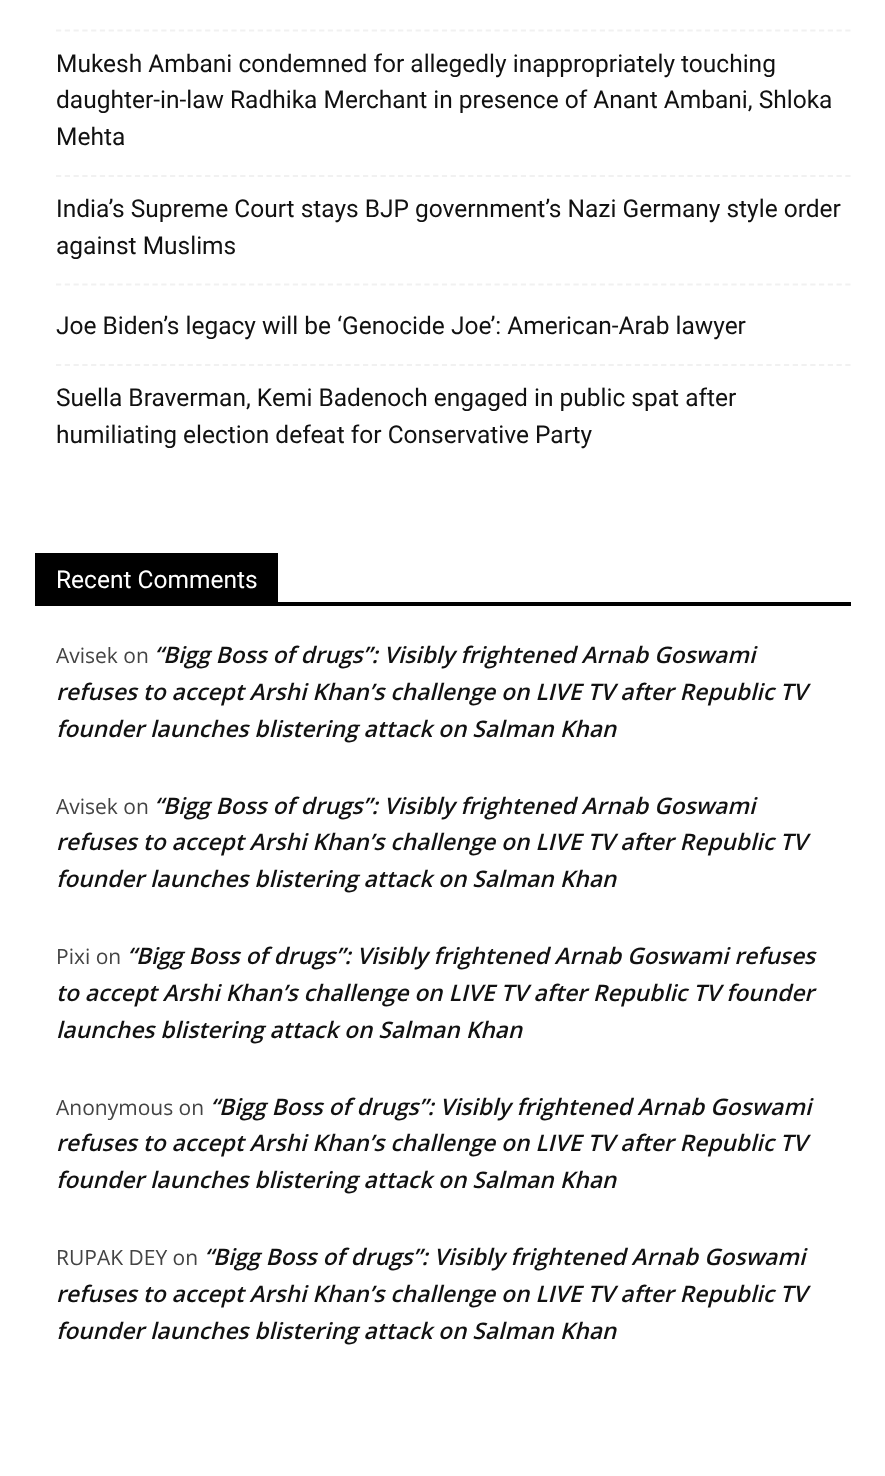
(async () => {
const canvas = document.querySelector("canvas")
canvas.width = 885
canvas.height = 1476
const c = canvas.getContext("2d")
c.miterLimit = 4
c.fontKerning = "normal"
function T(s,x,y){c.fillText(s,x,y)}
function R(x,y,w,h){c.fillRect(x,y,w,h)}
let path
c.fillStyle="#fff"
R(0,0,885,1476)
path = new Path2D("M56 30.5h794.5")
c.strokeStyle="#f1f1f1"
c.lineWidth=1.8
c.setLineDash([5.25,3.52])
c.stroke(path)
path = new Path2D("M56 176h794.5")
c.stroke(path)
c.font="24.5px Roboto"
c.fillStyle="#111"
T("Mukesh Ambani condemned for allegedly inappropriately touching",56,72)
T("daughter-in-law Radhika Merchant in presence of Anant Ambani, Shloka",56,108)
T("Mehta",56,145)
path = new Path2D("M56 284.5h794.5")
c.stroke(path)
T("India’s Supreme Court stays BJP government’s Nazi Germany style order",56,217)
T("against Muslims",56,254)
path = new Path2D("M56 365h794.5")
c.stroke(path)
T("Joe Biden’s legacy will be ‘Genocide Joe’: American-Arab lawyer",56,334)
T("Suella Braverman, Kemi Badenoch engaged in public spat after",56,406)
T("humiliating election defeat for Conservative Party",56,443)
c.fillStyle="#000"
R(35,602,816,4)
R(35,553,243,49)
c.fillStyle="#fff"
T("Recent Comments",56,588)
c.font="21px Open Sans"
c.fillStyle="#444"
T("Avisek on",56,663)
c.font="italic 600 22.75px Open Sans"
c.fillStyle="#111"
T("“Bigg Boss of drugs”: Visibly frightened Arnab Goswami",154,663)
T("refuses to accept Arshi Khan’s challenge on LIVE TV after Republic TV",56,700)
T("founder launches blistering attack on Salman Khan",56,737)
c.font="21px Open Sans"
c.fillStyle="#444"
T("Avisek on",56,814)
c.font="italic 600 22.75px Open Sans"
c.fillStyle="#111"
T("“Bigg Boss of drugs”: Visibly frightened Arnab Goswami",154,814)
T("refuses to accept Arshi Khan’s challenge on LIVE TV after Republic TV",56,850)
T("founder launches blistering attack on Salman Khan",56,887)
c.font="21px Open Sans"
c.fillStyle="#444"
T("Pixi on",56,964)
c.font="italic 600 22.75px Open Sans"
c.fillStyle="#111"
T("“Bigg Boss of drugs”: Visibly frightened Arnab Goswami refuses",127,964)
T("to accept Arshi Khan’s challenge on LIVE TV after Republic TV founder",56,1001)
T("launches blistering attack on Salman Khan",56,1038)
c.font="21px Open Sans"
c.fillStyle="#444"
T("Anonymous on",56,1115)
c.font="italic 600 22.75px Open Sans"
c.fillStyle="#111"
T("“Bigg Boss of drugs”: Visibly frightened Arnab Goswami",210,1115)
T("refuses to accept Arshi Khan’s challenge on LIVE TV after Republic TV",56,1151)
T("founder launches blistering attack on Salman Khan",56,1188)
c.font="21px Open Sans"
c.fillStyle="#444"
T("RUPAK DEY on",56,1265)
c.font="italic 600 22.75px Open Sans"
c.fillStyle="#111"
T("“Bigg Boss of drugs”: Visibly frightened Arnab Goswami",204,1265)
T("refuses to accept Arshi Khan’s challenge on LIVE TV after Republic TV",56,1302)
T("founder launches blistering attack on Salman Khan",56,1339)
})()
